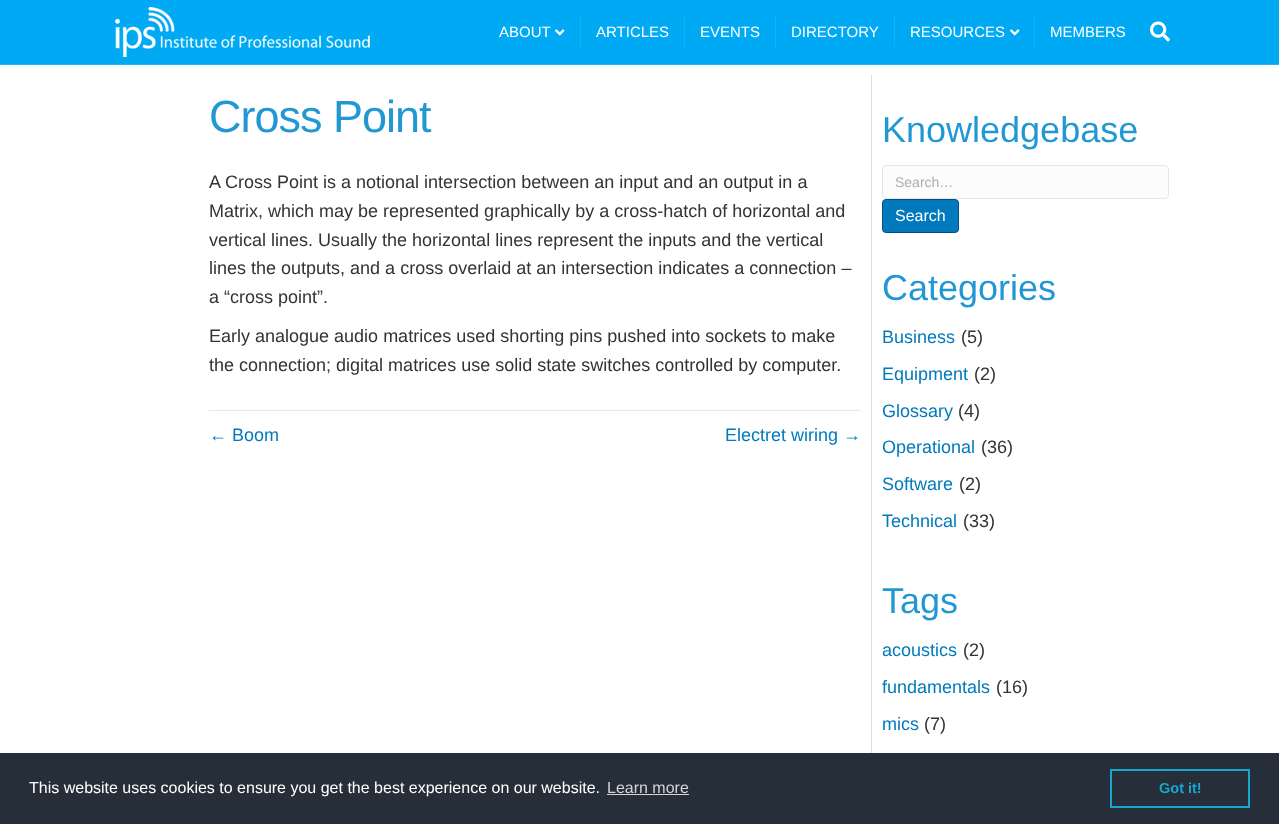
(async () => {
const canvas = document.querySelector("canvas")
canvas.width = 1279
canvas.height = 824
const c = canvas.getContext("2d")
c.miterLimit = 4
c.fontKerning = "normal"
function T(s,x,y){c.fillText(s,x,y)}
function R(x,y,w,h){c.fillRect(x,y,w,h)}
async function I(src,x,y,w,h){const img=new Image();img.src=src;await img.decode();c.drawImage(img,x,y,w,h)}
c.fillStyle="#fff"
R(0,0,1279,824)
c.fillStyle="#00a9f4"
R(0,0,1279,64)
c.fillStyle="#21b4f5"
R(0,64,1279,1)
await I("1.png",115,7,255,50)
c.fillStyle="#1ab2f5"
R(580,16,1,32)
c.font="15px Liberation Sans"
c.fillStyle="#fff"
T("ABOUT",499,37)
await I("2.png",555,29,10,7)
c.fillStyle="#1ab2f5"
R(684,16,1,31)
c.fillStyle="#fff"
T("ARTICLES",596,37)
c.fillStyle="#1ab2f5"
R(775,16,1,31)
c.fillStyle="#fff"
T("EVENTS",700,37)
c.fillStyle="#1ab2f5"
R(894,16,1,31)
c.fillStyle="#fff"
T("DIRECTORY",791,37)
c.fillStyle="#1ab2f5"
R(1034,16,1,32)
c.fillStyle="#fff"
T("RESOURCES",910,37)
await I("2.png",1010,29,10,7)
T("MEMBERS",1050,37)
await I("3.png",1150,21,20,21)
c.letterSpacing="-1px"
c.font="45px Liberation Sans"
c.fillStyle="#2198d3"
T("Cross Point",209,132)
c.letterSpacing="0px"
c.font="18px Liberation Sans"
c.fillStyle="#333"
T("A Cross Point is a notional intersection between an input and an output in a",209,188)
T("Matrix, which may be represented graphically by a cross-hatch of horizontal and",209,217)
T("vertical lines. Usually the horizontal lines represent the inputs and the vertical",209,246)
T("lines the outputs, and a cross overlaid at an intersection indicates a connection –",209,274)
T("a “cross point”.",209,303)
T("Early analogue audio matrices used shorting pins pushed into sockets to make",209,342)
T("the connection; digital matrices use solid state switches controlled by computer.",209,371)
c.fillStyle="#e8e8e8"
R(209,410,652,1)
c.fillStyle="#007abc"
T("← Boom",209,441)
T("Electret wiring →",725,441)
c.fillStyle="#ddd"
R(871,75,1,678)
c.font="36px Liberation Sans"
c.fillStyle="#2198d3"
T("Knowledgebase",882,142)
c.fillStyle="#fcfcfc"
c.beginPath()
c.roundRect(882.5,165.5,286,33,3.5)
c.fill()
c.strokeStyle="#e6e6e6"
c.stroke()
c.font="14px Liberation Sans"
c.fillStyle="#acacac"
T("Search…",895,187)
c.fillStyle="#007abc"
c.beginPath()
c.roundRect(882.5,199.5,76,33,3.5)
c.fill()
c.strokeStyle="#00527f"
c.stroke()
c.font="16px Liberation Sans"
c.fillStyle="#fff"
T("Search",895,221)
c.font="36px Liberation Sans"
c.fillStyle="#2198d3"
T("Categories",882,300)
c.font="18px Liberation Sans"
c.fillStyle="#007abc"
T("Business",882,343)
c.fillStyle="#333"
T("(5)",961,343)
c.fillStyle="#007abc"
T("Equipment",882,380)
c.fillStyle="#333"
T("(2)",974,380)
c.fillStyle="#007abc"
T("Glossary",882,417)
c.fillStyle="#333"
T("(4)",958,417)
c.fillStyle="#007abc"
T("Operational",882,453)
c.fillStyle="#333"
T("(36)",981,453)
c.fillStyle="#007abc"
T("Software",882,490)
c.fillStyle="#333"
T("(2)",959,490)
c.fillStyle="#007abc"
T("Technical",882,527)
c.fillStyle="#333"
T("(33)",963,527)
c.font="36px Liberation Sans"
c.fillStyle="#2198d3"
T("Tags",882,613)
c.font="18px Liberation Sans"
c.fillStyle="#007abc"
T("acoustics",882,656)
c.fillStyle="#333"
T("(2)",963,656)
c.fillStyle="#007abc"
T("fundamentals",882,693)
c.fillStyle="#333"
T("(16)",996,693)
c.fillStyle="#007abc"
T("mics",882,730)
c.fillStyle="#333"
T("(7)",924,730)
c.fillStyle="#252e39"
R(0,753,1279,71)
c.font="16px Liberation Sans"
c.fillStyle="#fff"
T("This website uses cookies to ensure you get the best experience on our website.",29,793)
c.fillStyle="#d3d5d7"
T("Learn more",607,793)
R(607,794,82,1)
c.strokeStyle="#14a7d0"
c.lineWidth=2
c.strokeRect(1111,770,138,37)
c.font="bold 14.5px Liberation Sans"
c.fillStyle="#14a7d0"
T("Got it!",1159,793)
})()
